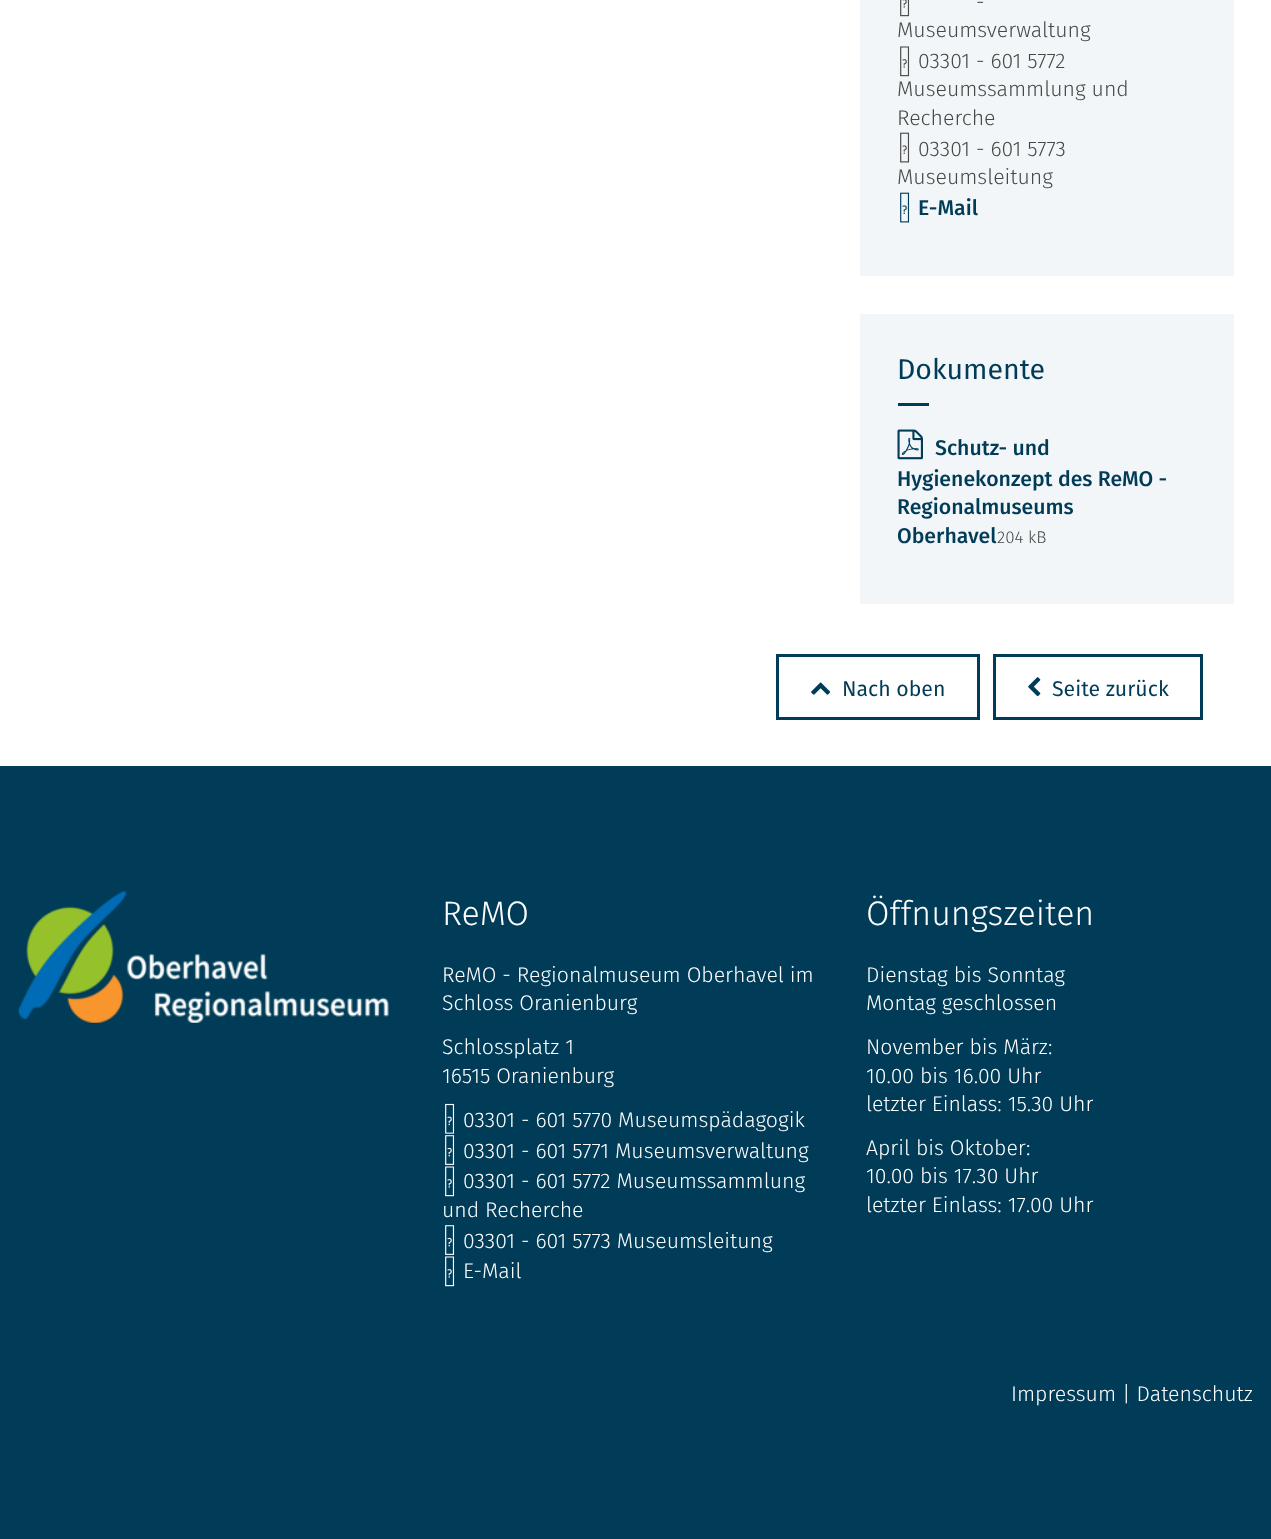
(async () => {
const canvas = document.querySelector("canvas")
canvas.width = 1271
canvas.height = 1539
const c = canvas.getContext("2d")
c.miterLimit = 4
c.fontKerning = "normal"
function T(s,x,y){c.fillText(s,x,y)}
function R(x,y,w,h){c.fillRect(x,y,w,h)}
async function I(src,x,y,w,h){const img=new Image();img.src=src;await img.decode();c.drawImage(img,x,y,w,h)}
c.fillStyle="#003c57"
R(0,0,1271,1539)
c.fillStyle="#fff"
R(0,0,1271,766)
c.fillStyle="#f3f6f8"
R(860,0,374,276)
await I("1.png",900,0,10,17)
c.font="300 21.25px Fira Sans"
c.fillStyle="#474848"
T("-",976,9)
T("Museumsverwaltung",897,37)
await I("2.png",900,46,10,31)
T("03301 - 601 5772",918,68)
T("Museumssammlung und",897,96)
T("Recherche",897,125)
await I("3.png",900,132,10,31)
T("03301 - 601 5773",918,156)
T("Museumsleitung",897,184)
await I("4.png",900,192,10,31)
c.font="500 21.25px Fira Sans"
c.fillStyle="#003c57"
T("E-Mail",918,215)
c.fillStyle="#f3f6f8"
R(860,314,374,290)
c.font="28.5px Fira Sans"
c.fillStyle="#003c57"
T("Dokumente",897,379)
R(898,403,31,3)
await I("5.png",897,429,26,31)
c.font="500 21.25px Fira Sans"
T("Schutz- und",935,455)
T("Hygienekonzept des ReMO -",897,486)
T("Regionalmuseums",897,514)
T("Oberhavel",897,543)
c.font="300 17px Fira Sans"
c.fillStyle="#474848"
T("204 kB",997,543)
c.strokeStyle="#003c57"
c.lineWidth=3
c.strokeRect(777.5,655.5,201,63)
await I("6.png",811,682,20,13)
c.font="21.25px Fira Sans"
c.fillStyle="#003c57"
T("Nach oben",842,696)
c.strokeRect(994.5,655.5,207,63)
await I("7.png",1028,677,13,20)
T("Seite zurück",1052,696)
await I("8.png",18,891,371,132)
c.font="300 34px Fira Sans"
c.fillStyle="#fff"
T("ReMO",442,925)
c.font="300 21.25px Fira Sans"
T("ReMO - Regionalmuseum Oberhavel im",442,982)
T("Schloss Oranienburg",442,1010)
T("Schlossplatz 1",442,1054)
T("16515 Oranienburg",442,1083)
await I("9.png",445,1103,10,31)
T("03301 - 601 5770 Museumspädagogik",463,1127)
await I("10.png",445,1135,10,30)
T("03301 - 601 5771 Museumsverwaltung",463,1158)
await I("11.png",445,1166,10,31)
T("03301 - 601 5772 Museumssammlung",463,1188)
T("und Recherche",442,1217)
await I("10.png",445,1225,10,30)
T("03301 - 601 5773 Museumsleitung",463,1248)
await I("11.png",445,1256,10,31)
T("E-Mail",463,1278)
c.font="300 34px Fira Sans"
T("Öffnungszeiten",866,925)
c.font="300 21.25px Fira Sans"
T("Dienstag bis Sonntag",866,982)
T("Montag geschlossen",866,1010)
T("November bis März:",866,1054)
T("10.00 bis 16.00 Uhr",866,1083)
T("letzter Einlass: 15.30 Uhr",866,1111)
T("April bis Oktober:",866,1155)
T("10.00 bis 17.30 Uhr",866,1183)
T("letzter Einlass: 17.00 Uhr",866,1212)
T("Impressum | Datenschutz",1011,1401)
})()
